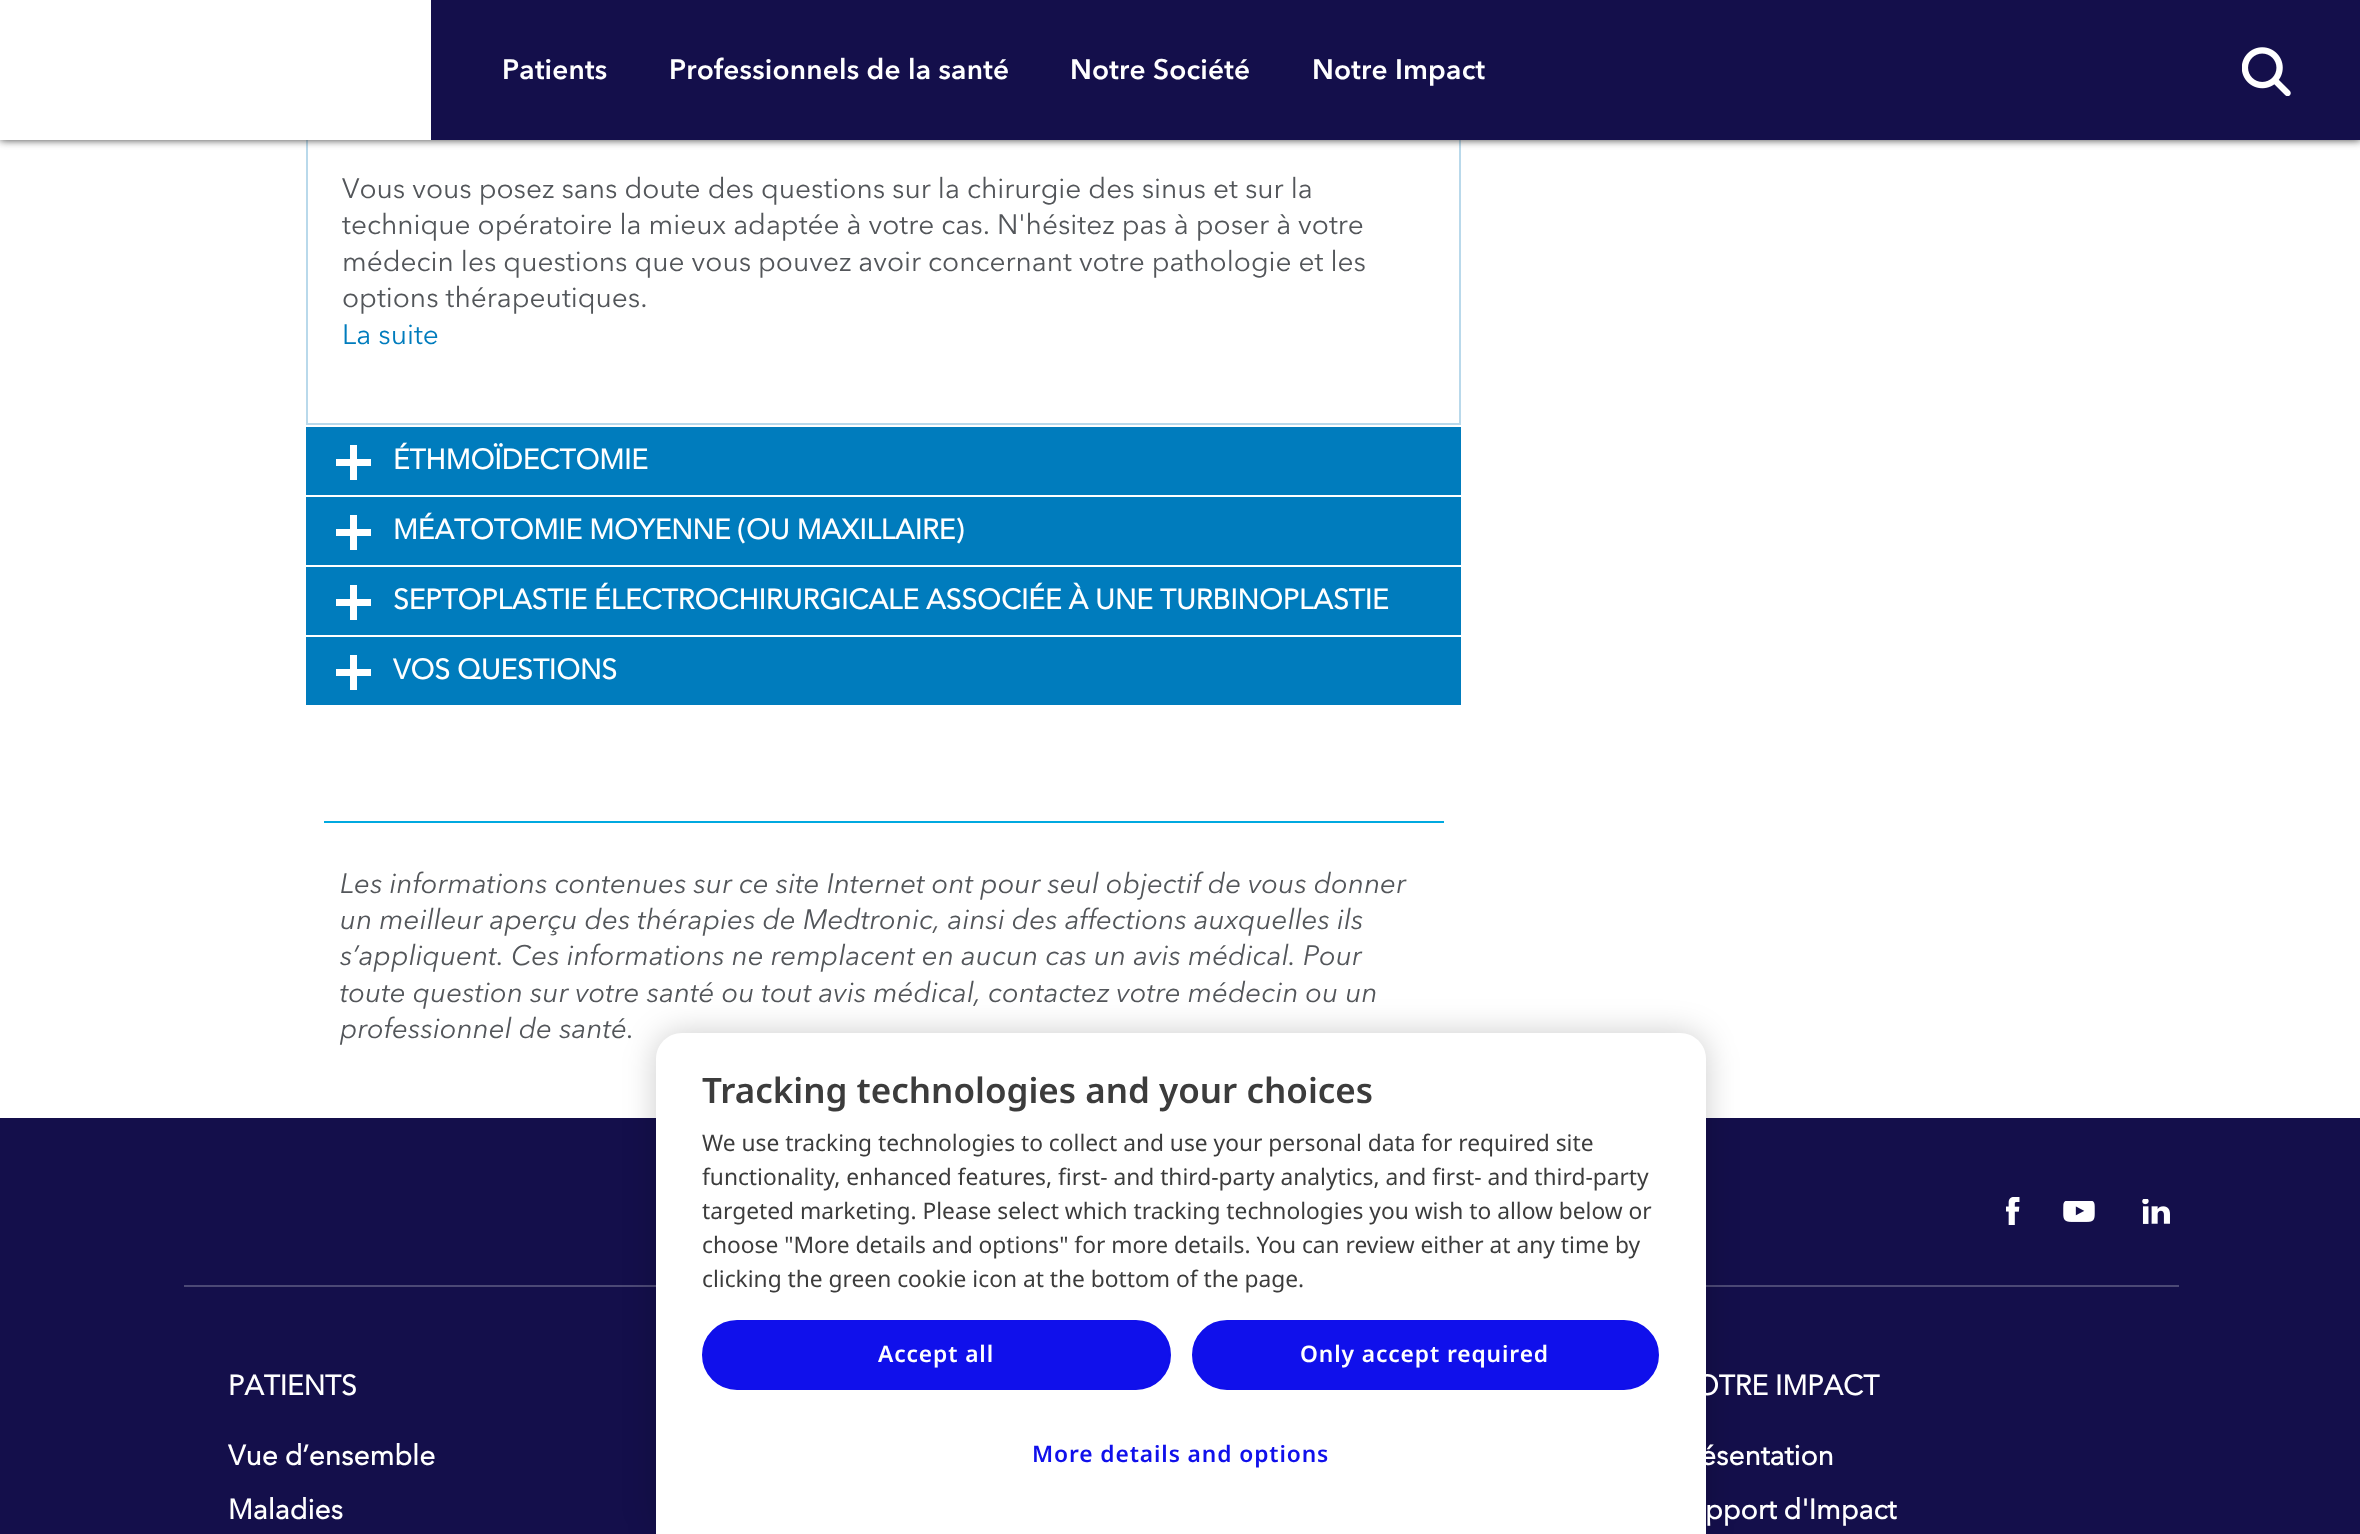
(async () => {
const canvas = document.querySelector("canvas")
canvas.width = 2360
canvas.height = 1534
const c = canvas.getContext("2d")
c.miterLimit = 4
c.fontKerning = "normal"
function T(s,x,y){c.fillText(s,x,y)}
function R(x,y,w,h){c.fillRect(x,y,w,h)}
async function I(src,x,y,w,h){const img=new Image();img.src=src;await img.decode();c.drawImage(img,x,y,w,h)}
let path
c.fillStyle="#fff"
R(0,0,2360,1534)
c.strokeStyle="#b9d9eb"
c.lineWidth=2
c.strokeRect(307,-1,1153,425)
c.fillStyle="#3c3c3c"
c.filter="blur(4.5px)"
c.beginPath()
c.rect(0,0,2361,140)
c.fill()
c.filter="none"
c.fillStyle="#140f4b"
R(431,0,1929,140)
c.fillStyle="#fff"
R(0,0,431,140)
c.letterSpacing="0.2px"
c.font="600 28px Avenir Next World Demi"
T("Patients",502,79)
T("Professionnels de la santé",669,79)
T("Notre Société",1070,79)
T("Notre Impact",1312,79)
await I("1.png",2242,47,49,49)
c.letterSpacing="0px"
c.font="28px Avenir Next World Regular"
c.fillStyle="#53565a"
T("Vous vous posez sans doute des questions sur la chirurgie des sinus et sur la",342,198)
T("technique opératoire la mieux adaptée à votre cas. N'hésitez pas à poser à votre",342,234)
T("médecin les questions que vous pouvez avoir concernant votre pathologie et les",342,271)
T("options thérapeutiques.",342,307)
c.fillStyle="#007cbd"
T("La suite",342,344)
R(306,427,1155,68)
c.fillStyle="#fff"
R(350,445,7,35)
R(336,459,35,7)
c.font="bold 28px Avenir Next World Regular"
T("ÉTHMOÏDECTOMIE",393,469)
c.fillStyle="#007cbd"
R(306,497,1155,68)
c.fillStyle="#fff"
R(350,515,7,35)
R(336,529,35,7)
T("MÉATOTOMIE MOYENNE (OU MAXILLAIRE)",393,539)
c.fillStyle="#007cbd"
R(306,567,1155,68)
c.fillStyle="#fff"
R(350,585,7,35)
R(336,599,35,7)
T("SEPTOPLASTIE ÉLECTROCHIRURGICALE ASSOCIÉE À UNE TURBINOPLASTIE",393,609)
c.fillStyle="#007cbd"
R(306,637,1155,68)
c.fillStyle="#fff"
R(350,655,7,35)
R(336,669,35,7)
T("VOS QUESTIONS",393,679)
c.fillStyle="#00a9e0"
R(324,821,1120,2)
c.font="italic 28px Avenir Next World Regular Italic"
c.fillStyle="#53565a"
T("Les informations contenues sur ce site Internet ont pour seul objectif de vous donner",340,893)
T("un meilleur aperçu des thérapies de Medtronic, ainsi des affections auxquelles ils",340,929)
T("s’appliquent. Ces informations ne remplacent en aucun cas un avis médical. Pour",340,965)
T("toute question sur votre santé ou tout avis médical, contactez votre médecin ou un",340,1002)
T("professionnel de santé.",340,1038)
c.fillStyle="#140f4b"
R(0,1118,2360,416)
c.fillStyle="#4c4976"
R(184,1285,1995,2)
c.fillStyle="#00000033"
c.filter="blur(16px)"
c.beginPath()
c.roundRect(656,1033,1050,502,26)
c.fill()
c.filter="none"
c.fillStyle="#fff"
path = new Path2D("M682 1033h998c14.5 0 26 11.5 26 26v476h-1050v-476c0-14.5 11.5-26 26-26z")
c.fill(path)
c.font="600 35px Noto Sans"
c.fillStyle="#3c3c3c"
T("Tracking technologies and your choices",702,1103)
c.font="22.75px Noto Sans"
T("We use tracking technologies to collect and use your personal data for required site",702,1151)
T("functionality, enhanced features, first- and third-party analytics, and first- and third-party",702,1185)
T("targeted marketing. Please select which tracking technologies you wish to allow below or",702,1219)
T("choose \"More details and options\" for more details. You can review either at any time by",702,1253)
T("clicking the green cookie icon at the bottom of the page.",702,1287)
c.fillStyle="#1010eb"
c.beginPath()
c.roundRect(703,1321,467,68,34)
c.fill()
c.strokeStyle="#1010eb"
c.stroke()
c.letterSpacing="0.9px"
c.font="600 22.75px Noto Sans"
c.fillStyle="#fff"
T("Accept all",878,1362)
c.fillStyle="#1010eb"
c.beginPath()
c.roundRect(1193,1321,465,68,34)
c.fill()
c.stroke()
c.fillStyle="#fff"
T("Only accept required",1300,1362)
c.fillStyle="#1010eb"
T("More details and options",1032,1462)
await I("2.png",2006,1197,14,28)
await I("3.png",2063,1201,32,21)
await I("4.png",2142,1199,28,25)
c.letterSpacing="0px"
c.font="bold 28px Avenir Next World Regular"
c.fillStyle="#fff"
T("PATIENTS",228,1395)
T("Vue d’ensemble",228,1465)
T("Maladies",228,1519)
T("OTRE IMPACT",1695,1395)
T("ésentation",1700,1465)
T("pport d'Impact",1705,1519)
})()
